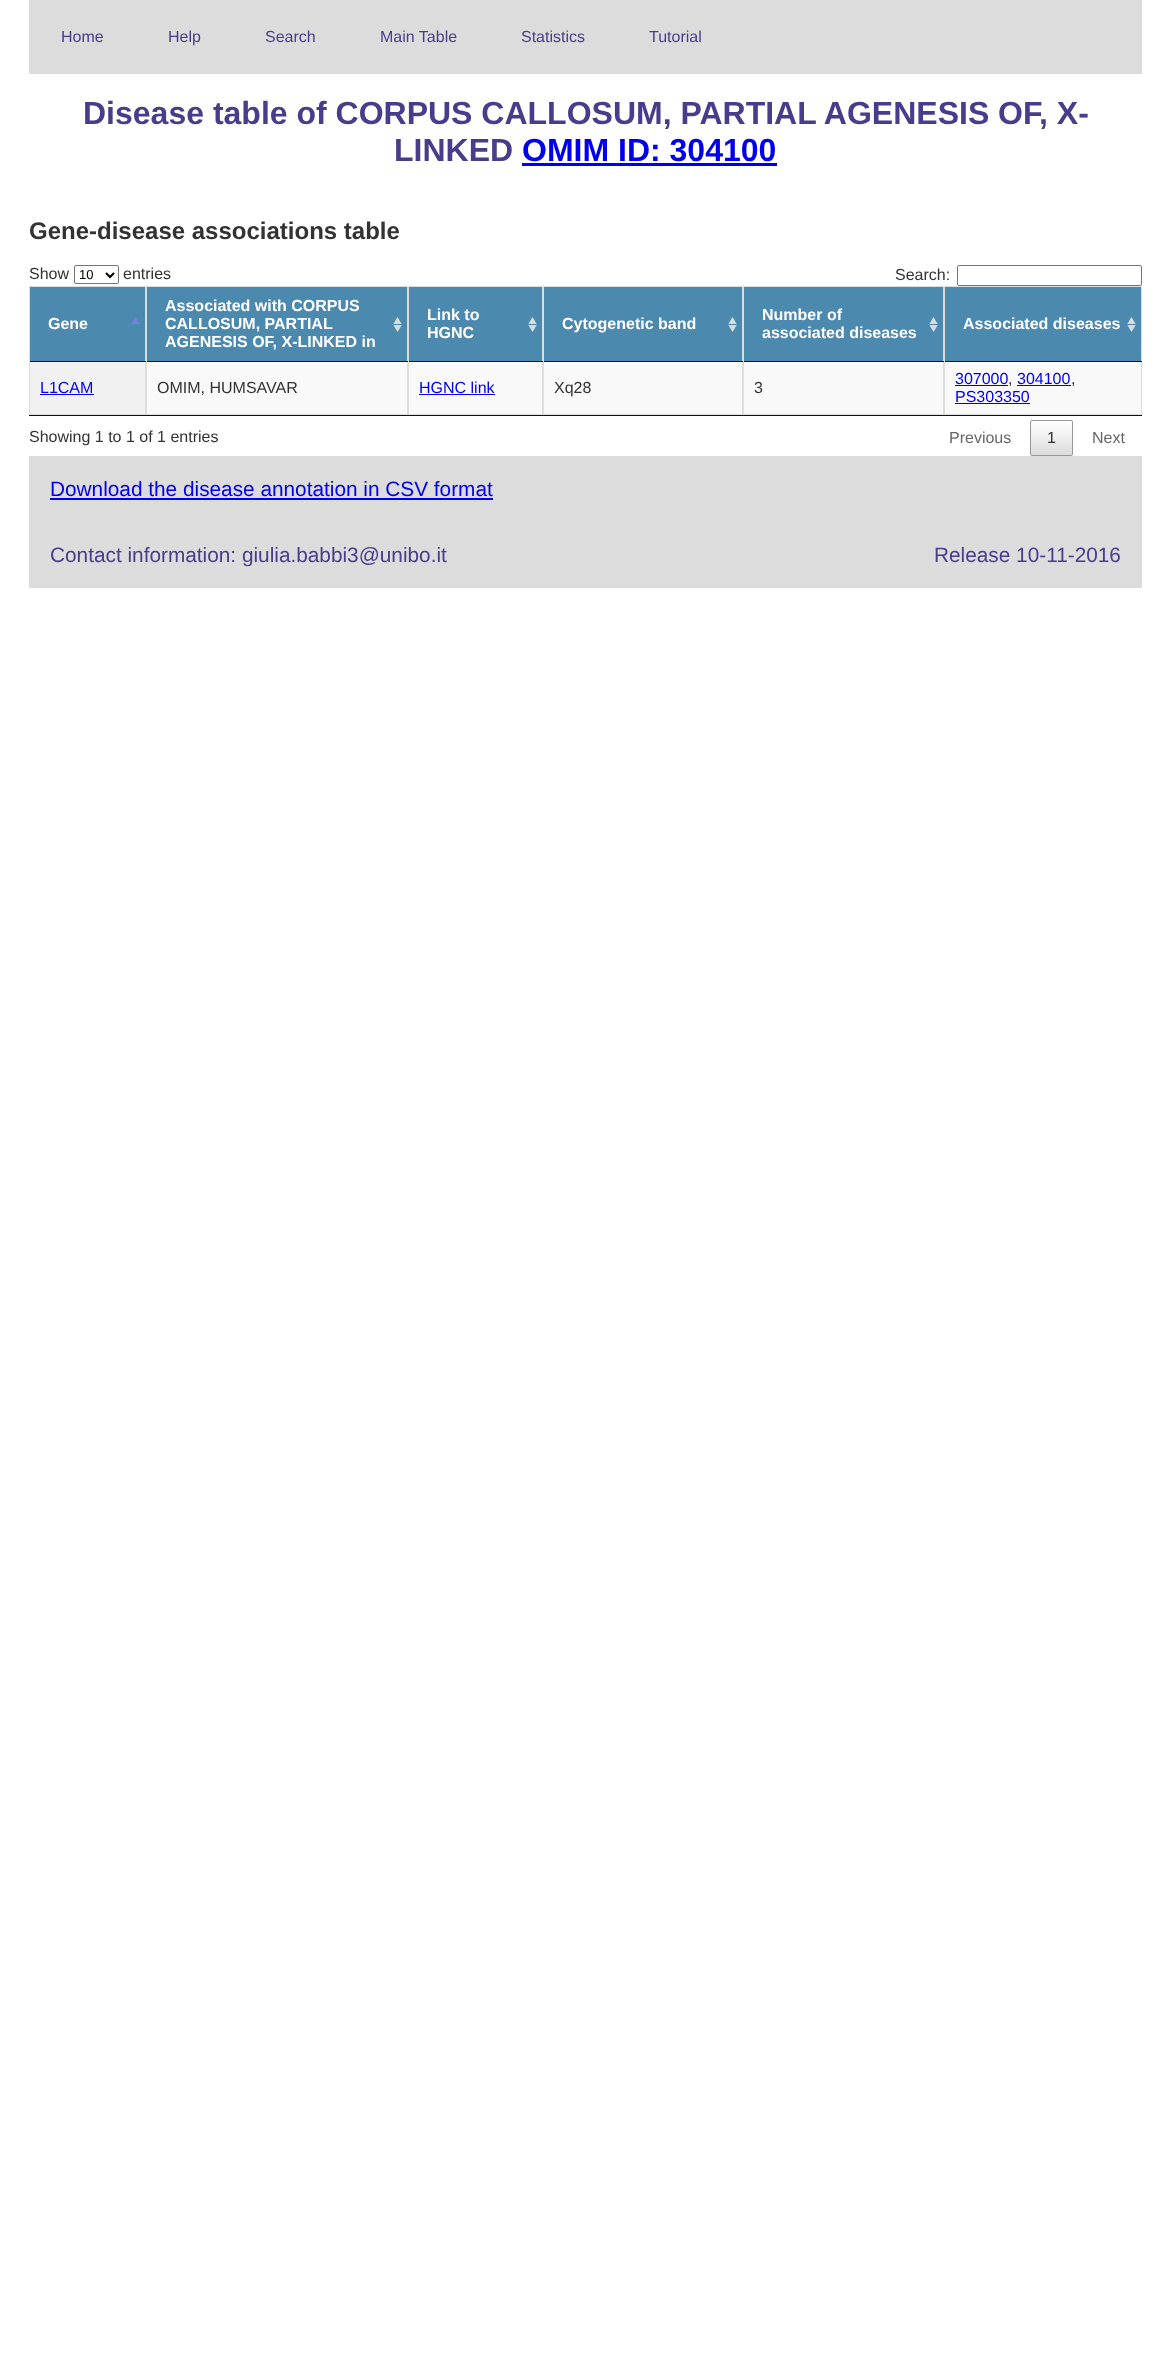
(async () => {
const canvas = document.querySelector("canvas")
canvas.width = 1171
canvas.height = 2376
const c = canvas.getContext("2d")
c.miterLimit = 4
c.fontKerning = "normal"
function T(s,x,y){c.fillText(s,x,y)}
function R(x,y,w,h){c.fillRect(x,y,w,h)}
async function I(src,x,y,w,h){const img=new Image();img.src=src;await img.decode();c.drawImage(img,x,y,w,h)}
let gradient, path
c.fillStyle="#fff"
R(0,0,1171,2376)
c.fillStyle="#dcdcdc"
R(29,0,1113,74)
c.font="16px Liberation Sans"
c.fillStyle="#483d8b"
T("Home",61,42)
T("Help",168,42)
T("Search",265,42)
T("Main Table",380,42)
T("Statistics",521,42)
T("Tutorial",649,42)
c.font="bold 32px Liberation Sans"
T("Disease table of CORPUS CALLOSUM, PARTIAL AGENESIS OF, X-",83,124)
T("LINKED",394,161)
c.fillStyle="#00e"
T("OMIM ID: 304100",522,161)
R(522,163,255,3)
c.font="bold 24px Liberation Sans"
c.fillStyle="#333"
T("Gene-disease associations table",29,239)
c.font="16px Liberation Sans"
T("Show",29,279)
c.beginPath()
c.roundRect(74.5,265.5,44,18,1.5)
c.strokeStyle="#767676"
c.stroke()
path = new Path2D("M106 273l4 4l4-4")
c.strokeStyle="#000"
c.lineWidth=2
c.stroke(path)
c.font="13px Liberation Sans"
c.fillStyle="#000"
T("10",79,279)
c.font="16px Liberation Sans"
c.fillStyle="#333"
T("entries",123,279)
T("Search:",895,280)
c.beginPath()
c.roundRect(957.5,265.5,184,20,1.5)
c.strokeStyle="#767676"
c.lineWidth=1
c.stroke()
c.fillStyle="#111"
R(29,415,1113,1)
c.fillStyle="#4c89af"
R(30,287,115,74)
await I("1.png",131,317,9,7)
c.fillStyle="#ddd"
R(29,286,1113,1)
R(145,286,1,129)
c.fillStyle="#111"
R(29,361,117,1)
c.fillStyle="#ddd"
R(29,286,1,76)
c.font="bold 16px Liberation Sans"
c.fillStyle="#fff"
T("Gene",48,329)
c.fillStyle="#4c89af"
R(147,287,260,74)
await I("2.png",393,317,9,15)
c.fillStyle="#ddd"
R(407,286,1,76)
c.fillStyle="#111"
R(146,361,262,1)
c.fillStyle="#ddd"
R(146,286,1,76)
c.fillStyle="#fff"
T("Associated with CORPUS",165,311)
T("CALLOSUM, PARTIAL",165,329)
T("AGENESIS OF, X-LINKED in",165,347)
c.fillStyle="#4c89af"
R(409,287,133,74)
await I("2.png",528,317,9,15)
c.fillStyle="#ddd"
R(542,286,1,76)
c.fillStyle="#111"
R(408,361,135,1)
c.fillStyle="#ddd"
R(408,286,1,76)
c.fillStyle="#fff"
T("Link to",427,320)
T("HGNC",427,338)
c.fillStyle="#4c89af"
R(544,287,198,74)
await I("2.png",728,317,9,15)
c.fillStyle="#ddd"
R(742,286,1,76)
c.fillStyle="#111"
R(543,361,200,1)
c.fillStyle="#ddd"
R(543,286,1,76)
c.fillStyle="#fff"
T("Cytogenetic band",562,329)
c.fillStyle="#4c89af"
R(744,287,199,74)
await I("2.png",929,317,9,15)
c.fillStyle="#ddd"
R(943,286,1,76)
c.fillStyle="#111"
R(743,361,201,1)
c.fillStyle="#ddd"
R(743,286,1,76)
c.fillStyle="#fff"
T("Number of",762,320)
T("associated diseases",762,338)
c.fillStyle="#4c89af"
R(945,287,196,74)
await I("2.png",1127,317,9,15)
c.fillStyle="#ddd"
R(1141,286,1,129)
c.fillStyle="#111"
R(944,361,198,1)
c.fillStyle="#ddd"
R(944,286,1,76)
c.fillStyle="#fff"
T("Associated diseases",963,329)
c.fillStyle="#f9f9f9"
R(147,362,994,52)
c.fillStyle="#f1f1f1"
R(30,362,115,52)
c.fillStyle="#ddd"
R(29,414,117,1)
R(29,362,1,53)
c.font="16px Liberation Sans"
c.fillStyle="#00e"
T("L1CAM",40,393)
R(40,394,54,1)
c.fillStyle="#ddd"
R(407,362,1,53)
R(146,414,262,1)
R(146,362,1,53)
c.fillStyle="#333"
T("OMIM, HUMSAVAR",157,393)
c.fillStyle="#ddd"
R(542,362,1,53)
R(408,414,135,1)
R(408,362,1,53)
c.fillStyle="#00e"
T("HGNC link",419,393)
R(419,394,76,1)
c.fillStyle="#ddd"
R(742,362,1,53)
R(543,414,200,1)
R(543,362,1,53)
c.fillStyle="#333"
T("Xq28",554,393)
c.fillStyle="#ddd"
R(943,362,1,53)
R(743,414,399,1)
R(743,362,1,53)
c.fillStyle="#333"
T("3",754,393)
c.fillStyle="#ddd"
R(944,362,1,53)
c.fillStyle="#00e"
T("307000",955,384)
R(955,385,53,1)
c.fillStyle="#333"
T(",",1008,384)
c.fillStyle="#00e"
T("304100",1017,384)
R(1017,385,54,1)
c.fillStyle="#333"
T(",",1071,384)
c.fillStyle="#00e"
T("PS303350",955,402)
R(955,403,75,1)
c.fillStyle="#333"
T("Showing 1 to 1 of 1 entries",29,442)
c.fillStyle="#666"
T("Previous",949,443)
c.save()
c.beginPath()
c.roundRect(1030,420,43,36,2)
c.clip()
gradient = c.createLinearGradient(1052,421,1052,455)
gradient.addColorStop(0,"#fff")
gradient.addColorStop(1,"#dcdcdc")
c.fillStyle = gradient
R(1030,421,43,34)
c.restore()
c.beginPath()
c.roundRect(1030.5,420.5,42,35,1.5)
c.strokeStyle="#979797"
c.stroke()
c.fillStyle="#333"
T("1",1047,443)
c.fillStyle="#666"
T("Next",1092,443)
c.fillStyle="#dcdcdc"
R(29,456,1113,132)
c.font="20.8px Liberation Sans"
c.fillStyle="#00e"
T("Download the disease annotation in CSV format",50,496)
R(50,498,443,2)
c.fillStyle="#483d8b"
T("Contact information: giulia.babbi3@unibo.it",50,562)
T("Release 10-11-2016",934,562)
})()
